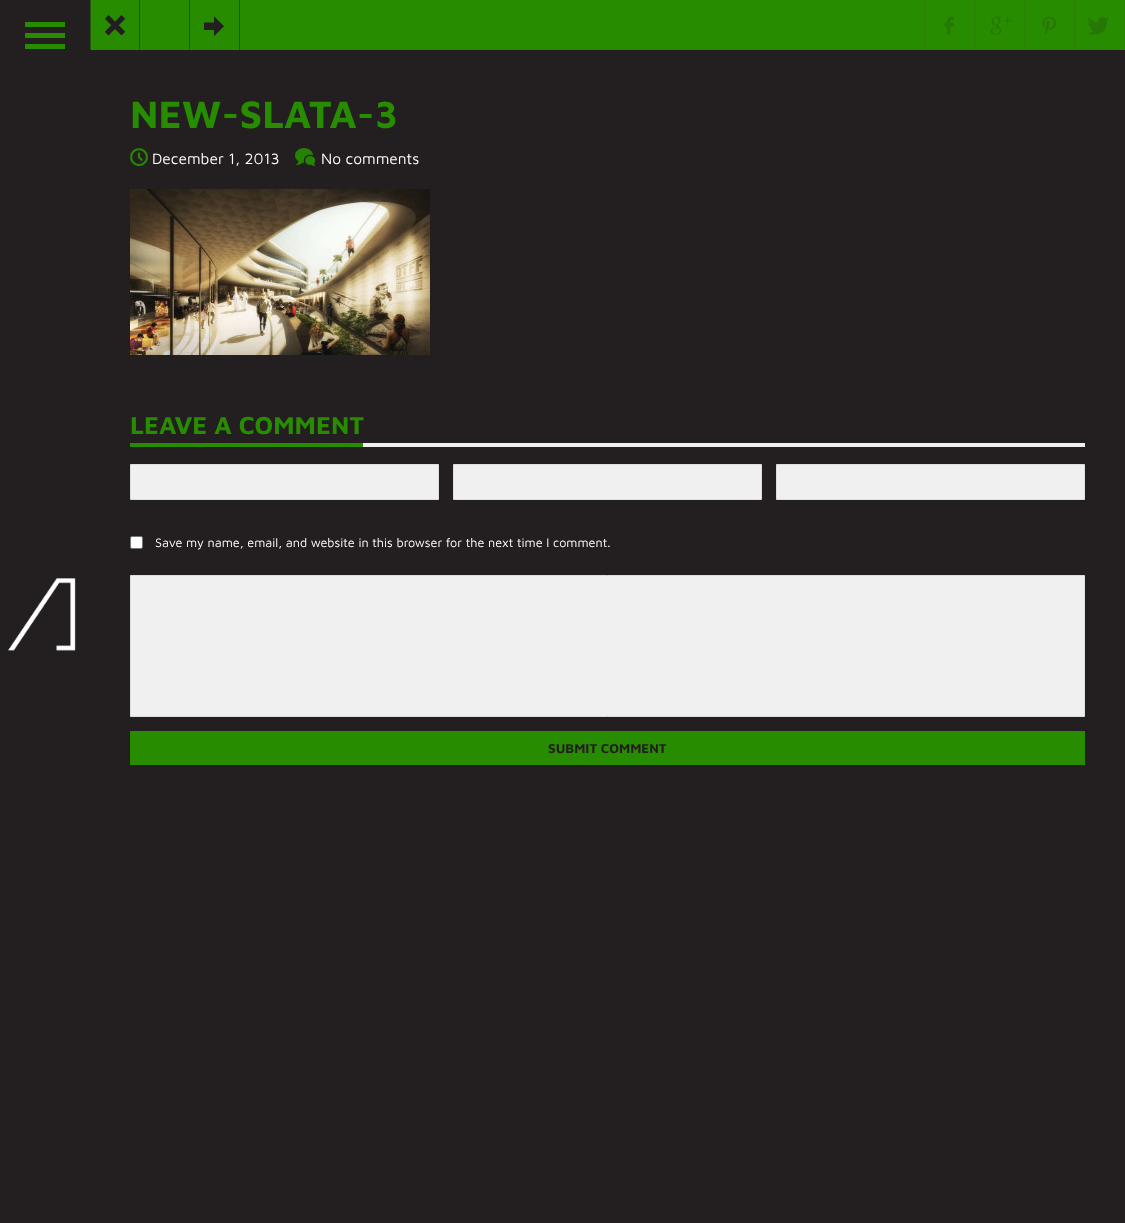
(async () => {
const canvas = document.querySelector("canvas")
canvas.width = 1125
canvas.height = 1223
const c = canvas.getContext("2d")
c.miterLimit = 4
c.fontKerning = "normal"
function T(s,x,y){c.fillText(s,x,y)}
function R(x,y,w,h){c.fillRect(x,y,w,h)}
async function I(src,x,y,w,h){const img=new Image();img.src=src;await img.decode();c.drawImage(img,x,y,w,h)}
c.fillStyle="#231f20"
R(0,0,1125,1223)
c.fillStyle="#288c00"
R(25,22,40,5)
R(25,33,40,5)
R(25,44,40,5)
await I("1.png",8,578,68,73)
R(91,0,1033,50)
c.fillStyle="#265610"
R(139,0,1,50)
R(90,0,1,50)
await I("2.png",105,15,20,21)
R(189,0,1,50)
R(239,0,1,50)
await I("3.png",204,16,20,20)
c.fillStyle="#288203"
R(924,0,1,50)
R(974,0,1,50)
await I("4.png",944,16,10,19)
R(1024,0,1,50)
await I("5.png",990,16,22,19)
R(1074,0,1,50)
await I("6.png",1042,16,14,19)
R(1124,0,1,50)
await I("7.png",1088,16,21,19)
c.font="bold 39.25px Maven Pro"
c.fillStyle="#288c00"
T("NEW-SLATA-3",130,128)
await I("8.png",130,148,18,19)
c.font="15.5px Maven Pro"
c.fillStyle="#fff"
T("December 1, 2013",152,164)
await I("9.png",295,148,21,19)
T("No comments",321,164)
await I("10.png",130,189,300,166)
c.fillStyle="#288c00"
R(130,443,233,4)
c.font="bold 25.25px Maven Pro"
T("LEAVE A COMMENT",130,434)
c.fillStyle="#f0f0f0"
R(363,443,722,4)
c.beginPath()
c.rect(130.5,464.5,308,35)
c.fill()
c.strokeStyle="#dedede"
c.stroke()
c.beginPath()
c.rect(453.5,464.5,308,35)
c.fill()
c.stroke()
c.beginPath()
c.rect(776.5,464.5,308,35)
c.fill()
c.stroke()
c.fillStyle="#fff"
c.beginPath()
c.roundRect(130.5,536.5,12,12,1.5)
c.fill()
c.strokeStyle="#767676"
c.stroke()
c.font="12.6px Maven Pro"
T("Save my name, email, and website in this browser for the next time I comment.",155,547)
c.fillStyle="#f0f0f0"
c.beginPath()
c.rect(130.5,575.5,954,141)
c.fill()
c.strokeStyle="#dedede"
c.stroke()
c.fillStyle="#288c00"
R(130,731,955,34)
c.font="bold 13.25px Maven Pro"
c.fillStyle="#231f20"
T("SUBMIT COMMENT",548,753)
})()
